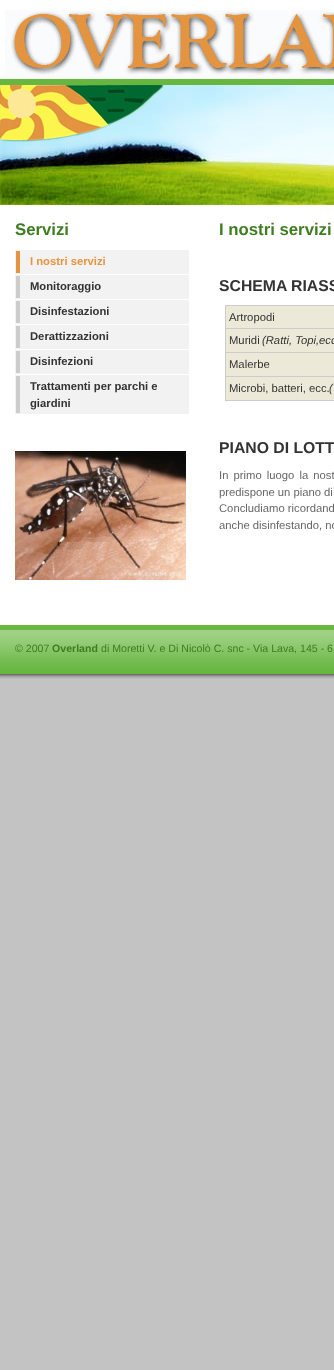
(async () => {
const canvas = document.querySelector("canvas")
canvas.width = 334
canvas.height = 1370
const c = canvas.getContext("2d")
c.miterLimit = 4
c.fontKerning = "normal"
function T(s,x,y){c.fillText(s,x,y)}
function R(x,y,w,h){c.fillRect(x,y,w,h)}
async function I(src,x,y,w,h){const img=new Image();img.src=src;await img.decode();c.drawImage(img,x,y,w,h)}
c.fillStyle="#c3c3c3"
R(0,0,334,1370)
c.fillStyle="#fff"
R(0,205,334,420)
await I("1.png",0,0,334,85)
await I("2.png",5,10,329,65)
await I("3.png",0,85,334,120)
c.font="bold 16.75px Liberation Sans"
c.fillStyle="#3f7d21"
T("Servizi",15,235)
c.strokeStyle="#f2f2f2"
c.strokeRect(15.5,250.5,173,23)
c.fillStyle="#f2f2f2"
R(20,251,168,22)
c.fillStyle="#e69440"
R(16,251,4,22)
c.font="bold 11.25px Liberation Sans"
T("I nostri servizi",30,265)
c.strokeRect(15.5,275.5,173,23)
c.fillStyle="#f2f2f2"
R(20,276,168,22)
c.fillStyle="#ccc"
R(16,276,4,22)
c.fillStyle="#333"
T("Monitoraggio",30,290)
c.strokeRect(15.5,300.5,173,23)
c.fillStyle="#f2f2f2"
R(20,301,168,22)
c.fillStyle="#ccc"
R(16,301,4,22)
c.fillStyle="#333"
T("Disinfestazioni",30,315)
c.strokeRect(15.5,325.5,173,23)
c.fillStyle="#f2f2f2"
R(20,326,168,22)
c.fillStyle="#ccc"
R(16,326,4,22)
c.fillStyle="#333"
T("Derattizzazioni",30,340)
c.strokeRect(15.5,350.5,173,23)
c.fillStyle="#f2f2f2"
R(20,351,168,22)
c.fillStyle="#ccc"
R(16,351,4,22)
c.fillStyle="#333"
T("Disinfezioni",30,365)
c.strokeRect(15.5,375.5,173,38)
c.fillStyle="#f2f2f2"
R(20,376,168,37)
c.fillStyle="#ccc"
R(16,376,4,37)
c.fillStyle="#333"
T("Trattamenti per parchi e",30,390)
T("giardini",30,407)
await I("4.png",15,451,171,129)
c.font="bold 16.75px Liberation Sans"
c.fillStyle="#3f7d21"
T("I nostri servizi",219,235)
c.font="bold 15.75px Liberation Sans"
c.fillStyle="#333"
T("SCHEMA RIASS",219,291)
c.fillStyle="#ccc"
R(225,305,109,96)
c.fillStyle="#ece9d8"
R(226,306,108,22)
c.font="11.25px Liberation Sans"
c.fillStyle="#333"
T("Artropodi",229,321)
c.fillStyle="#ece9d8"
R(226,329,108,23)
c.fillStyle="#333"
T("Muridi",229,344)
c.font="italic 11.25px Liberation Sans"
T("(Ratti, Topi,ecc",262,344)
c.fillStyle="#ece9d8"
R(226,353,108,23)
c.font="11.25px Liberation Sans"
c.fillStyle="#333"
T("Malerbe",229,368)
c.fillStyle="#ece9d8"
R(226,377,108,23)
c.fillStyle="#333"
T("Microbi, batteri, ecc.",229,392)
c.font="italic 11.25px Liberation Sans"
T("(",329,392)
c.font="bold 15.75px Liberation Sans"
T("PIANO DI LOTT",219,453)
c.wordSpacing="2px"
c.font="11.25px Liberation Sans"
c.fillStyle="#666"
T("In primo luogo la nost",219,479)
c.wordSpacing="0px"
T("predispone un piano di",219,496)
T("Concludiamo ricordand",219,512)
T("anche disinfestando, no",219,529)
await I("5.png",0,630,334,50)
c.fillStyle="#66b640"
R(0,625,334,5)
c.font="10.6px Liberation Sans"
c.fillStyle="#3f7d21"
T("© 2007",15,652)
c.font="bold 10.6px Liberation Sans"
T("Overland",52,652)
c.font="10.6px Liberation Sans"
T("di Moretti V. e Di Nicolò C. snc - Via Lava, 145 - 6",101,652)
})()
